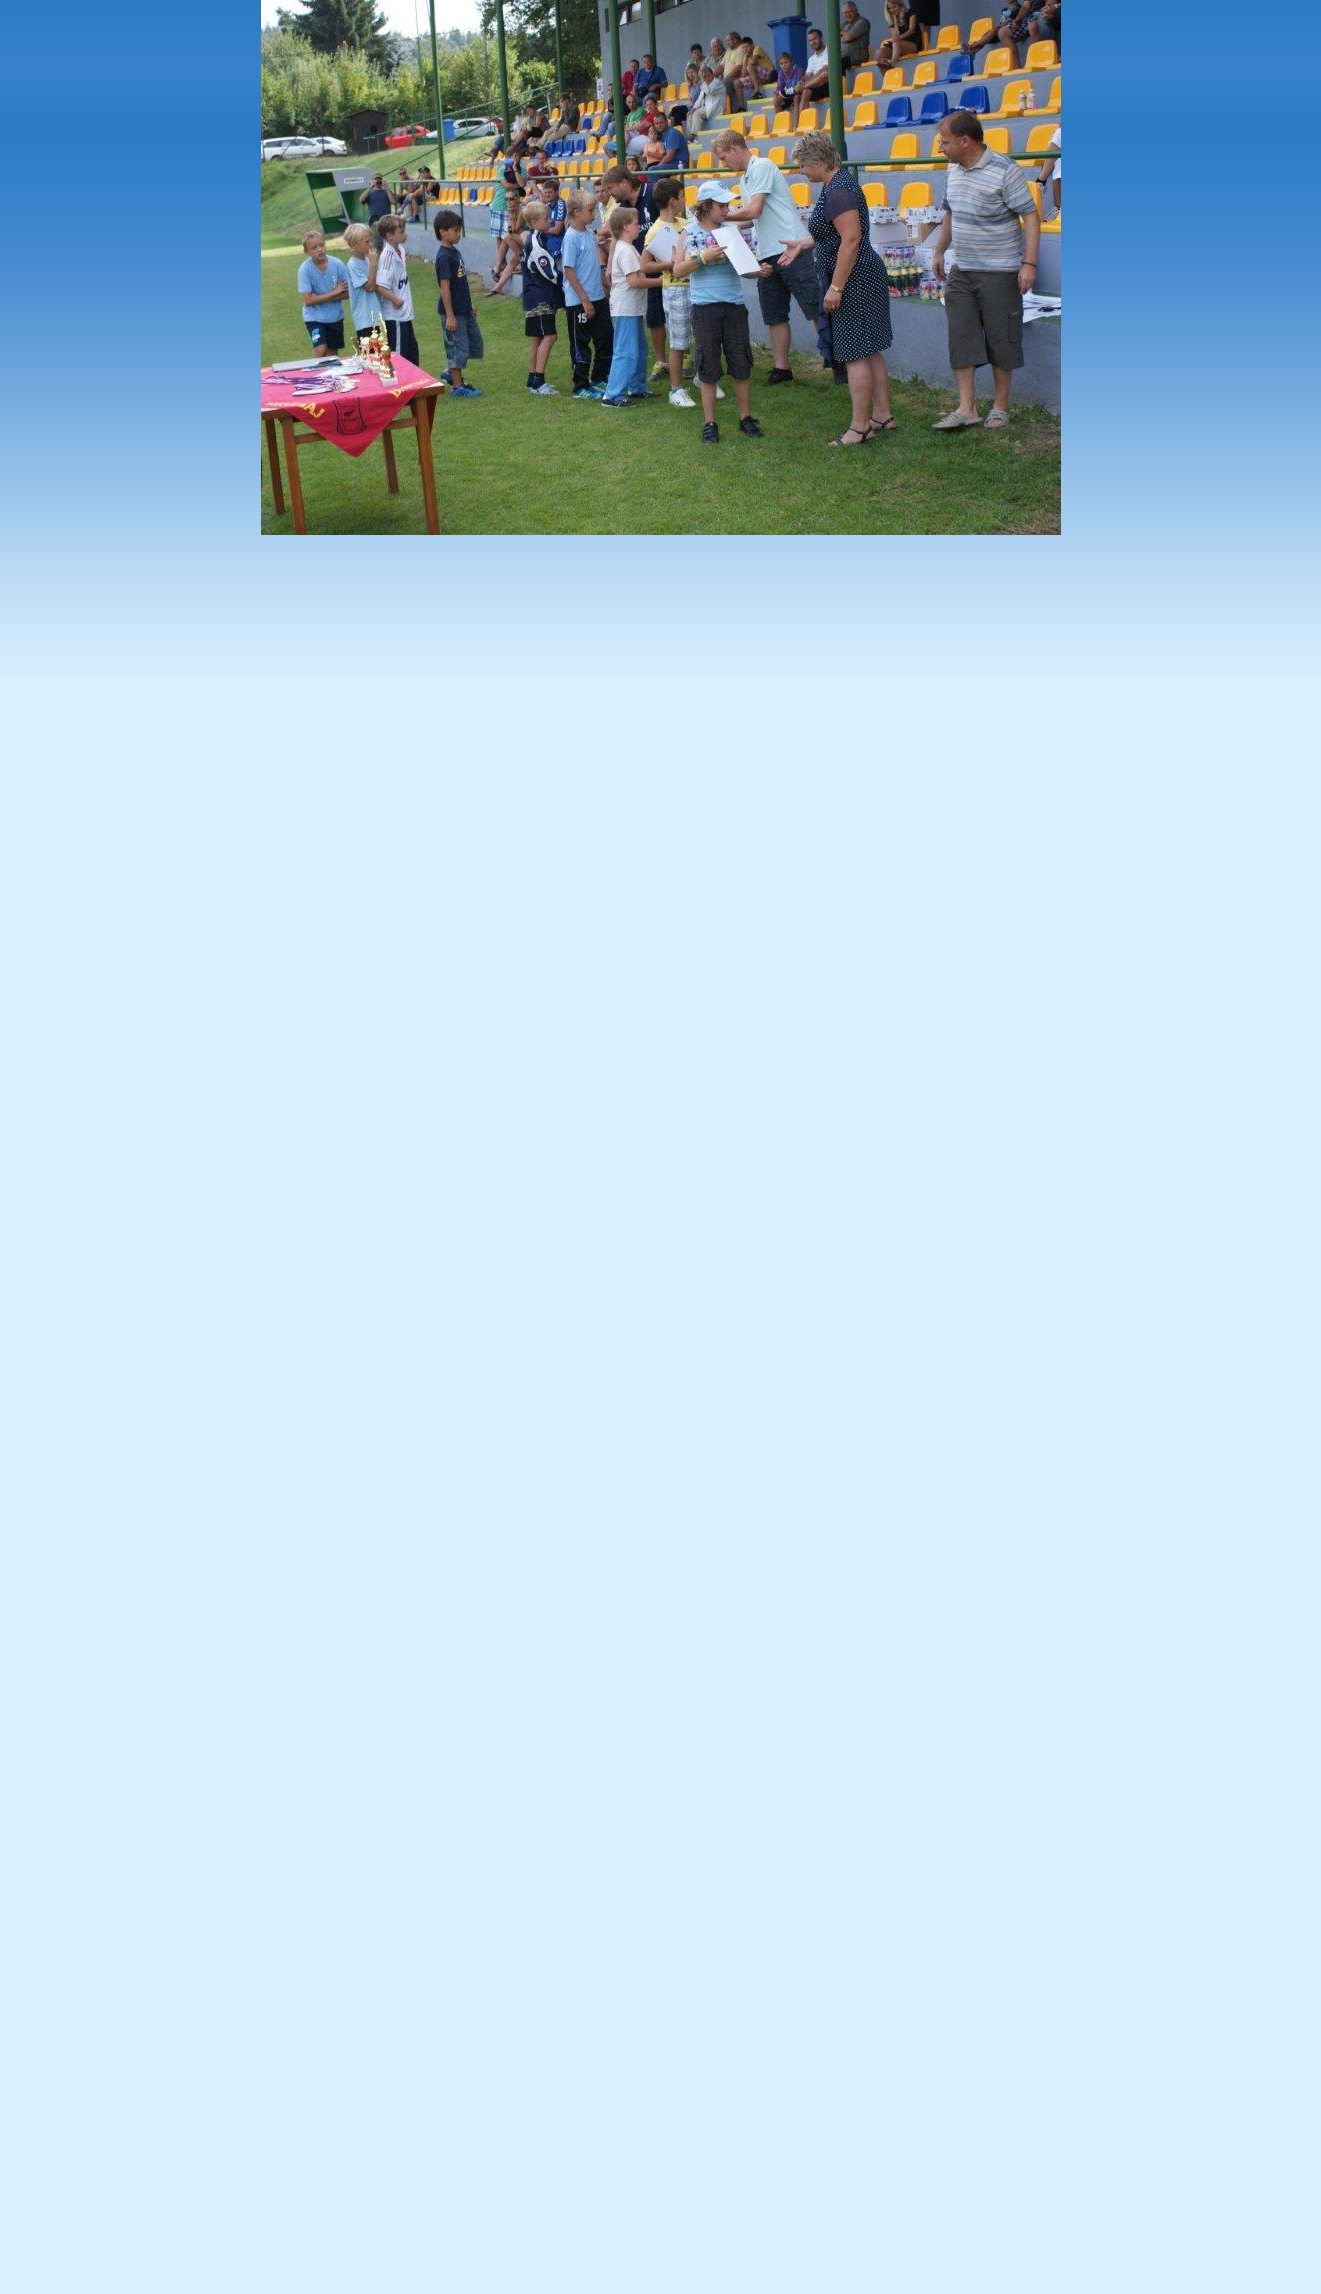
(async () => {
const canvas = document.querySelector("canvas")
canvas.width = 1321
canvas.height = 2294
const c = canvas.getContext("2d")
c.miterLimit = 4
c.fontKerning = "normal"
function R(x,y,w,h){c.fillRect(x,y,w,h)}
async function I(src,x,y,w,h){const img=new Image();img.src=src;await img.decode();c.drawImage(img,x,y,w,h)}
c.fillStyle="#dbf0ff"
R(0,0,1321,2294)
await I("1.png",0,535,1321,142)
await I("2.png",0,0,1321,535)
await I("3.png",261,0,800,535)
})()
